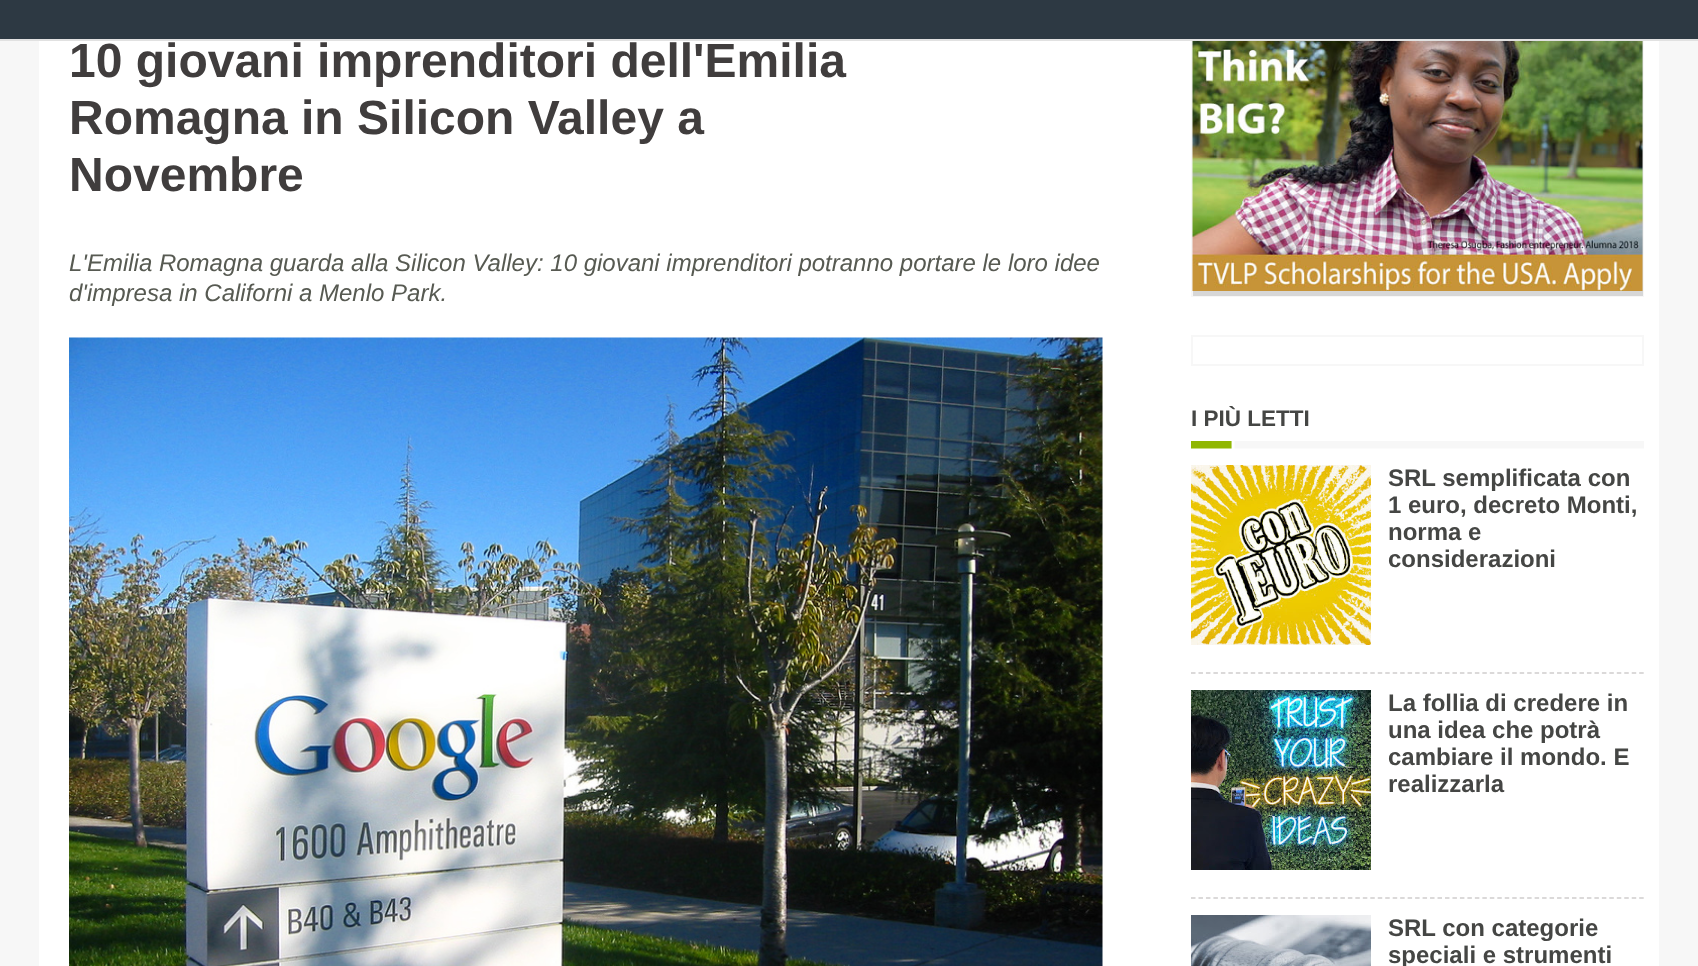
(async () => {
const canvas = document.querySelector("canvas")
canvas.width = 1698
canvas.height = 966
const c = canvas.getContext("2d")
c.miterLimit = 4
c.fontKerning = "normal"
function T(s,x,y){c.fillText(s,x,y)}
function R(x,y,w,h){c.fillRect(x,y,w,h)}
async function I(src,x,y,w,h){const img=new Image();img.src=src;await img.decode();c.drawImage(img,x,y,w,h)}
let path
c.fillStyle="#f7f7f7"
R(0,0,1698,966)
c.fillStyle="#fff"
R(39,41,1620,925)
c.strokeStyle="#f7f7f7"
c.lineWidth=2
c.strokeRect(1192,-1,451,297)
c.fillStyle="#2d3943"
R(0,0,1698,39)
c.fillStyle="#e1e1e1"
R(0,39,1698,2)
c.font="bold 48px Liberation Sans"
c.fillStyle="#403d3d"
T("10 giovani imprenditori dell'Emilia",69,77)
T("Romagna in Silicon Valley a",69,134)
T("Novembre",69,191)
c.font="italic 24px Liberation Sans"
c.fillStyle="#575a52"
T("L'Emilia Romagna guarda alla Silicon Valley: 10 giovani imprenditori potranno portare le loro idee",69,271)
T("d'impresa in Californi a Menlo Park.",69,301)
await I("1.png",69,337,1034,629)
c.fillStyle="#d7d7d7"
R(1193,41,450,255)
await I("2.png",1192,41,451,250)
c.strokeRect(1192,336,451,29)
await I("3.png",1191,441,453,8)
c.font="bold 22.5px Liberation Sans"
c.fillStyle="#454644"
T("I PIÙ LETTI",1191,426)
path = new Path2D("M1191 673h453")
c.strokeStyle="#cfcdcd"
c.lineWidth=1.5
c.setLineDash([4.5,2.97])
c.stroke(path)
await I("4.png",1191,465,180,180)
c.font="bold 24px Liberation Sans"
T("SRL semplificata con",1388,486)
T("1 euro, decreto Monti,",1388,513)
T("norma e",1388,540)
T("considerazioni",1388,567)
path = new Path2D("M1191 898h453")
c.stroke(path)
await I("5.png",1191,690,180,180)
T("La follia di credere in",1388,711)
T("una idea che potrà",1388,738)
T("cambiare il mondo. E",1388,765)
T("realizzarla",1388,792)
await I("6.png",1191,915,180,51)
T("SRL con categorie",1388,936)
T("speciali e strumenti",1388,963)
})()
